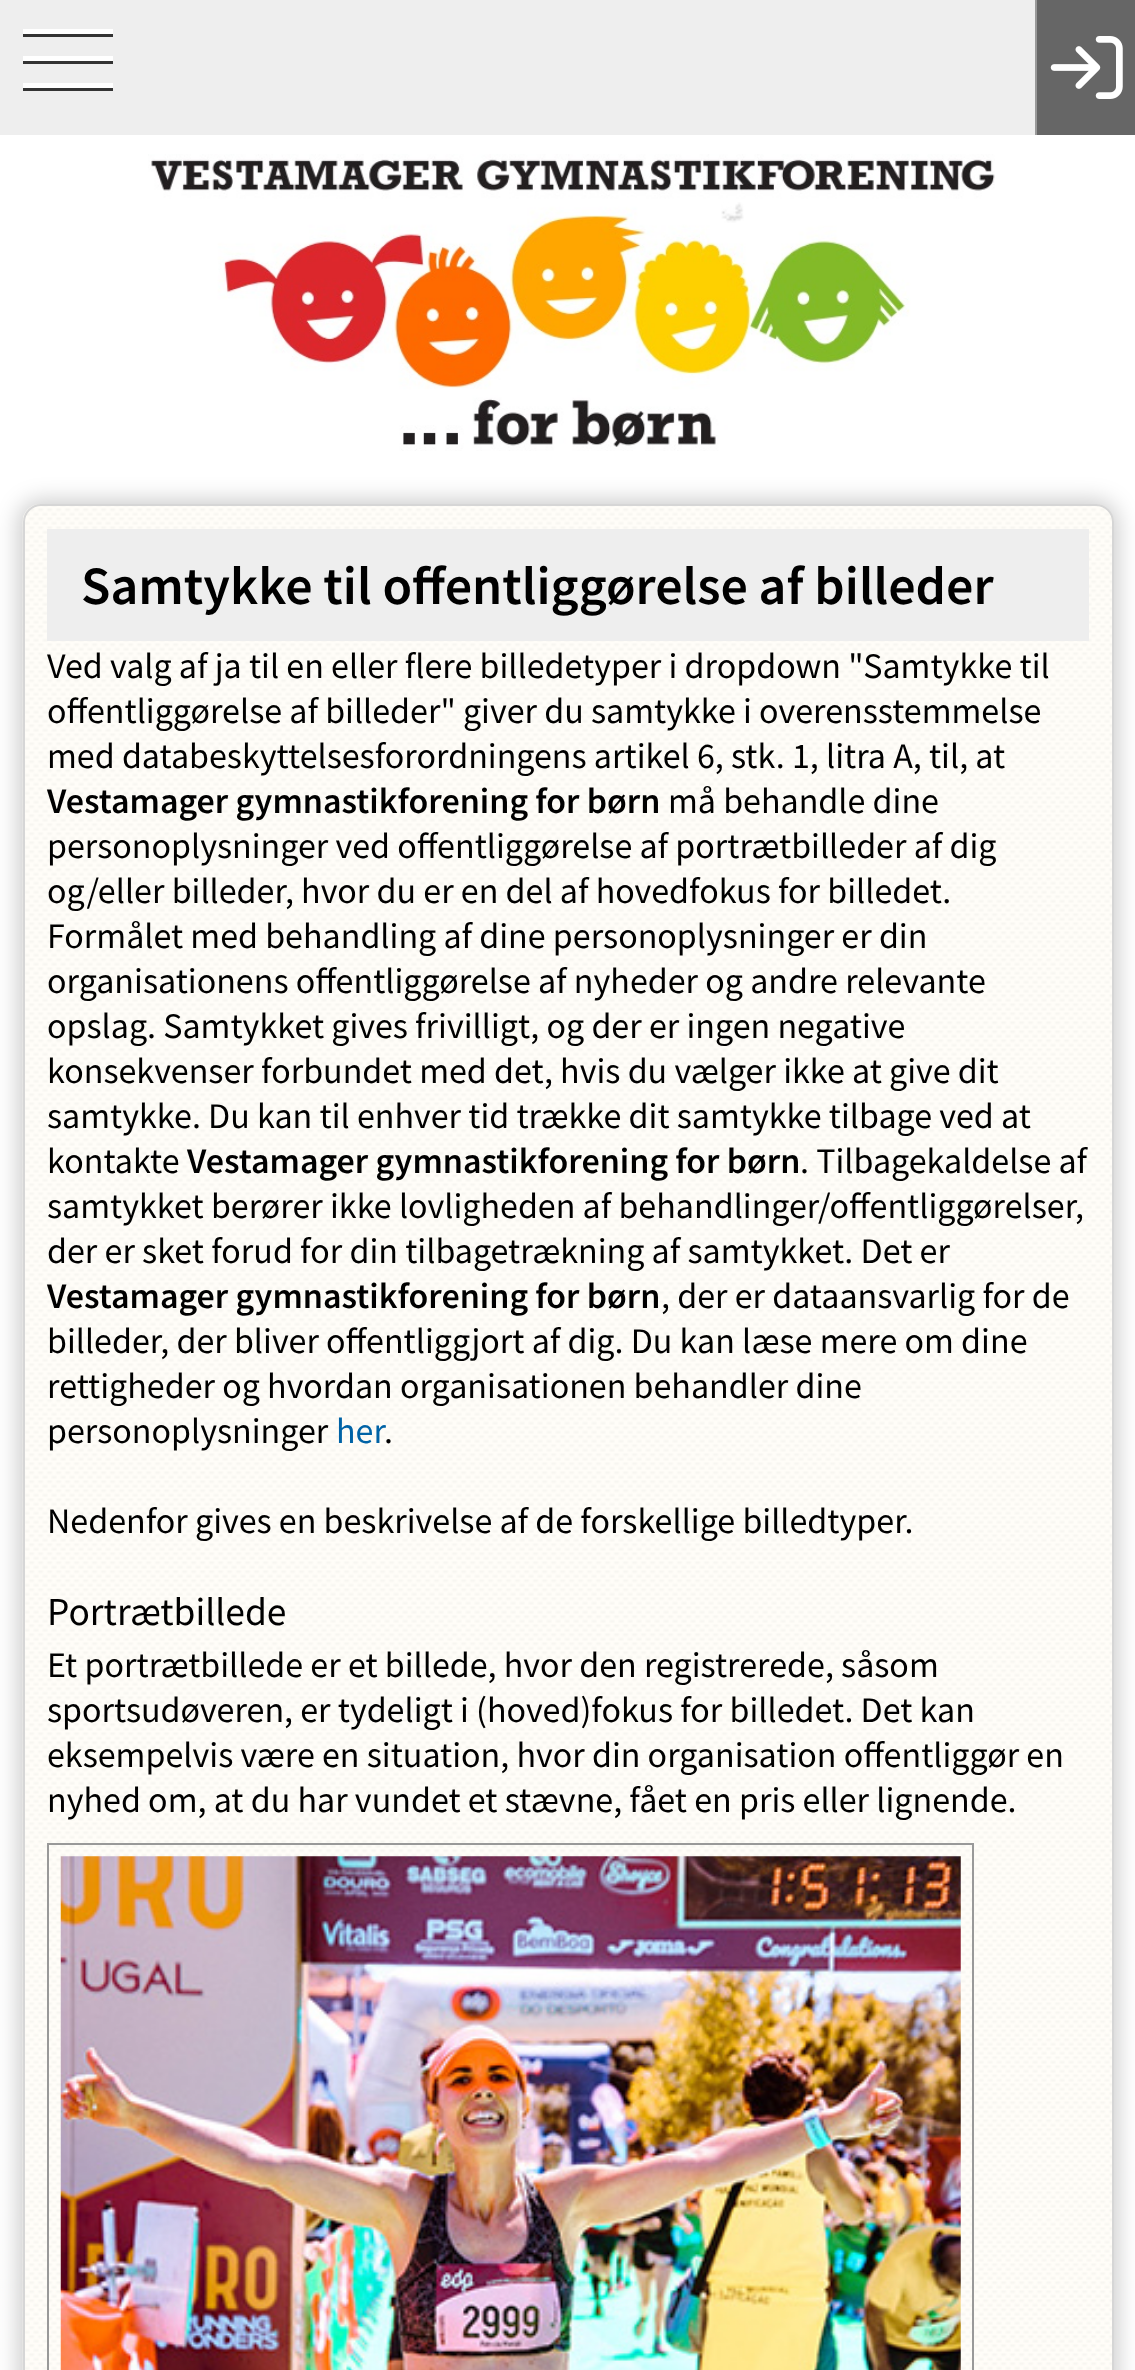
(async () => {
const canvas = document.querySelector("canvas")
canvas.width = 1135
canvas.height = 2370
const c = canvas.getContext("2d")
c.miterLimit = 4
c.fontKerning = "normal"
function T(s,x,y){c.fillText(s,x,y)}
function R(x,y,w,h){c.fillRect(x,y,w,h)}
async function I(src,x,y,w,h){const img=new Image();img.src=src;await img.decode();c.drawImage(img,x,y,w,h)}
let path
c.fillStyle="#fff"
R(0,0,1135,2370)
await I("3.png",148,154,847,297)
await I("1.png",721,202,23,21)
c.fillStyle="#eee"
R(0,0,1035,135)
c.fillStyle="#333"
path = new Path2D("M23 34v3h90v-5h-1v2z")
c.fill(path)
c.fillStyle="#fff"
R(23,29,90,5)
c.fillStyle="#333"
path = new Path2D("M23 61v3h90v-5h-1v2z")
c.fill(path)
c.fillStyle="#fff"
R(23,56,90,5)
c.fillStyle="#333"
path = new Path2D("M23 88v3h90v-5h-1v2z")
c.fill(path)
c.fillStyle="#fff"
R(23,83,90,5)
c.fillStyle="#666"
R(1037,0,98,135)
c.fillStyle="#999"
R(1035,0,2,135)
await I("2.png",1050,36,73,63)
c.fillStyle="#00000033"
c.filter="blur(11px)"
c.beginPath()
c.roundRect(18,500,1100,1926,23)
c.fill()
c.filter="none"
await I("4.png",22,504,1092,1866)
c.beginPath()
c.roundRect(24,505,1089,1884,17)
c.strokeStyle="#d6d6d6"
c.lineWidth=2
c.stroke()
c.fillStyle="#eee"
R(47,529,1042,112)
c.font="600 54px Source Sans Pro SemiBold"
c.fillStyle="#000"
T("Samtykke til offentliggørelse af billeder",81,604)
c.font="36px Source Sans Pro"
T("Ved valg af ja til en eller flere billedetyper i dropdown \"Samtykke til",47,678)
T("offentliggørelse af billeder\" giver du samtykke i overensstemmelse",47,723)
T("med databeskyttelsesforordningens artikel 6, stk. 1, litra A, til, at",47,768)
c.font="600 36px Source Sans Pro SemiBold"
T("Vestamager gymnastikforening for børn",47,813)
c.font="36px Source Sans Pro"
T("må behandle dine",668,813)
T("personoplysninger ved offentliggørelse af portrætbilleder af dig",47,858)
T("og/eller billeder, hvor du er en del af hovedfokus for billedet.",47,903)
T("Formålet med behandling af dine personoplysninger er din",47,948)
T("organisationens offentliggørelse af nyheder og andre relevante",47,993)
T("opslag. Samtykket gives frivilligt, og der er ingen negative",47,1038)
T("konsekvenser forbundet med det, hvis du vælger ikke at give dit",47,1083)
T("samtykke. Du kan til enhver tid trække dit samtykke tilbage ved at",47,1128)
T("kontakte",47,1173)
c.font="600 36px Source Sans Pro SemiBold"
T("Vestamager gymnastikforening for børn",187,1173)
c.font="36px Source Sans Pro"
T(". Tilbagekaldelse af",800,1173)
T("samtykket berører ikke lovligheden af behandlinger/offentliggørelser,",47,1218)
T("der er sket forud for din tilbagetrækning af samtykket. Det er",47,1263)
c.font="600 36px Source Sans Pro SemiBold"
T("Vestamager gymnastikforening for børn",47,1308)
c.font="36px Source Sans Pro"
T(", der er dataansvarlig for de",661,1308)
T("billeder, der bliver offentliggjort af dig. Du kan læse mere om dine",47,1353)
T("rettigheder og hvordan organisationen behandler dine",47,1398)
T("personoplysninger",47,1443)
c.fillStyle="#0063a6"
T("her",336,1443)
c.fillStyle="#000"
T(".",384,1443)
T("Nedenfor gives en beskrivelse af de forskellige billedtyper.",47,1533)
c.font="39.5px Source Sans Pro"
T("Portrætbillede",47,1625)
c.font="36px Source Sans Pro"
T("Et portrætbillede er et billede, hvor den registrerede, såsom",47,1677)
T("sportsudøveren, er tydeligt i (hoved)fokus for billedet. Det kan",47,1722)
T("eksempelvis være en situation, hvor din organisation offentliggør en",47,1767)
T("nyhed om, at du har vundet et stævne, fået en pris eller lignende.",47,1812)
c.strokeStyle="#999"
c.strokeRect(48,1844,925,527)
await I("5.png",60,1856,901,514)
})()
